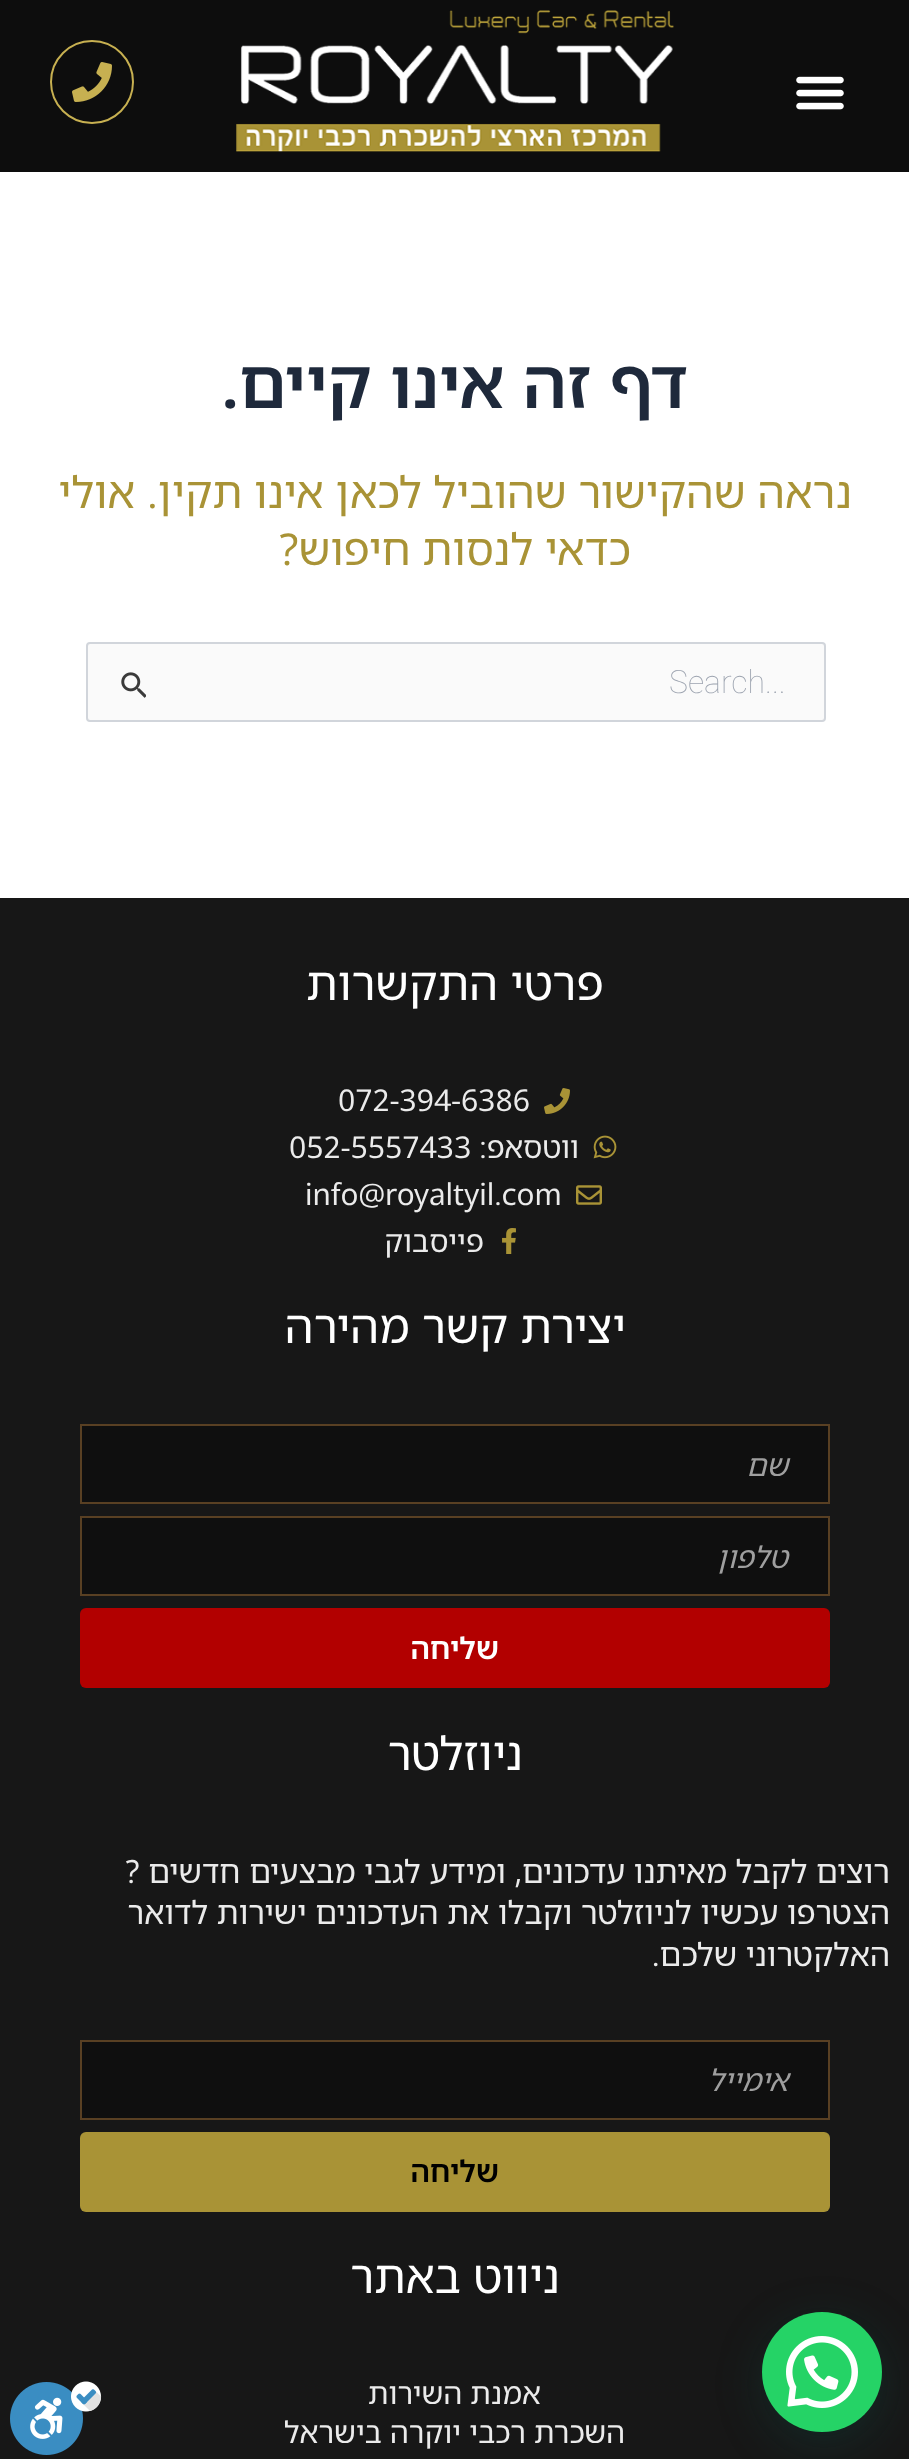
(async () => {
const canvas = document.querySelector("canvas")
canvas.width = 909
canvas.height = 2459
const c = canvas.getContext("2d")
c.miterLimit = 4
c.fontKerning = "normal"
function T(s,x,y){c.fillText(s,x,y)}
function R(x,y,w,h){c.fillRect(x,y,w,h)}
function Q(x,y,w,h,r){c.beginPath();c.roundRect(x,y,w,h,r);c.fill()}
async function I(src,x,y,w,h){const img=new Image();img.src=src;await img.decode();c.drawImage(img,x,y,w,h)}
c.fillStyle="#fff"
R(0,0,909,2459)
c.fillStyle="#0d0d0d"
R(0,0,909,172)
await I("1.png",796,76,48,34)
await I("2.png",236,10,438,142)
c.beginPath()
c.arc(92,82,41,0,7)
c.strokeStyle="#c7b051"
c.lineWidth=2
c.stroke()
await I("3.png",72,62,40,40)
c.direction="rtl"
c.font="600 68px Noto Sans Hebrew"
c.fillStyle="#1e293b"
T("דף זה אינו קיים.",688,408)
c.font="43.75px Noto Sans Hebrew"
c.fillStyle="#a99336"
T("נראה שהקישור שהוביל לכאן אינו תקין. אולי",852,508)
T("כדאי לנסות חיפוש?",631,565)
c.fillStyle="#fafafa"
c.beginPath()
c.roundRect(87,643,738,78,3)
c.fill()
c.strokeStyle="#d1d5db"
c.stroke()
c.direction="ltr"
c.font="100 32px Roboto"
c.fillStyle="#9ca3af"
T("Search...",669,693)
await I("4.png",121,672,25,26)
c.fillStyle="#171717"
R(0,898,909,1561)
c.direction="rtl"
c.font="46px Noto Sans Hebrew"
c.fillStyle="#fff"
T("פרטי התקשרות",604,1000)
await I("5.png",544,1088,26,26)
c.direction="ltr"
c.font="30px Noto Sans Hebrew"
c.fillStyle="#ebebeb"
T("072-394-6386",338,1111)
await I("6.png",593,1135,24,24)
c.direction="rtl"
T("ווטסאפ:",579,1158)
c.direction="ltr"
T("052-5557433",289,1158)
await I("7.png",576,1185,26,20)
T("info@royaltyil.com",305,1205)
await I("8.png",502,1228,14,26)
c.direction="rtl"
T("פייסבוק",484,1252)
c.font="46px Noto Sans Hebrew"
c.fillStyle="#fff"
T("יצירת קשר מהירה",626,1343)
c.fillStyle="#0f0f0f"
c.beginPath()
c.rect(81,1425,748,78)
c.fill()
c.strokeStyle="#594023"
c.stroke()
c.font="italic 30px Noto Sans Hebrew"
c.fillStyle="#9f9f9f"
T("שם",788,1476)
c.fillStyle="#0f0f0f"
c.beginPath()
c.rect(81,1517,748,78)
c.fill()
c.stroke()
c.fillStyle="#9f9f9f"
T("טלפון",788,1568)
c.fillStyle="#b20000"
Q(80,1608,750,80,6)
c.font="600 30px Noto Sans Hebrew"
c.fillStyle="#fff"
T("שליחה",499,1659)
c.font="46px Noto Sans Hebrew"
T("ניוזלטר",523,1770)
c.font="32px Noto Sans Hebrew"
c.fillStyle="#ebebeb"
T("רוצים לקבל מאיתנו עדכונים, ומידע לגבי מבצעים חדשים ?",890,1883)
T("הצטרפו עכשיו לניוזלטר וקבלו את העדכונים ישירות לדואר",890,1924)
T("האלקטרוני שלכם.",890,1966)
c.fillStyle="#0f0f0f"
c.beginPath()
c.rect(81,2041,748,78)
c.fill()
c.stroke()
c.font="italic 30px Noto Sans Hebrew"
c.fillStyle="#9f9f9f"
T("אימייל",788,2091)
c.fillStyle="#a99336"
Q(80,2132,750,80,6)
c.font="600 30px Noto Sans Hebrew"
c.fillStyle="#000"
T("שליחה",499,2182)
c.font="46px Noto Sans Hebrew"
c.fillStyle="#fff"
T("ניווט באתר",560,2293)
c.font="30px Noto Sans Hebrew"
c.fillStyle="#ebebeb"
T("אמנת השירות",541,2404)
T("השכרת רכבי יוקרה בישראל",625,2443)
c.fillStyle="#075e543d"
c.filter="blur(24px)"
c.beginPath()
c.roundRect(764,2324,120,120,60)
c.fill()
c.filter="none"
c.fillStyle="#25d366"
c.beginPath()
c.arc(822,2372,60,0,7)
c.fill()
await I("9.png",786,2336,72,72)
await I("10.png",10,2381,92,74)
})()
